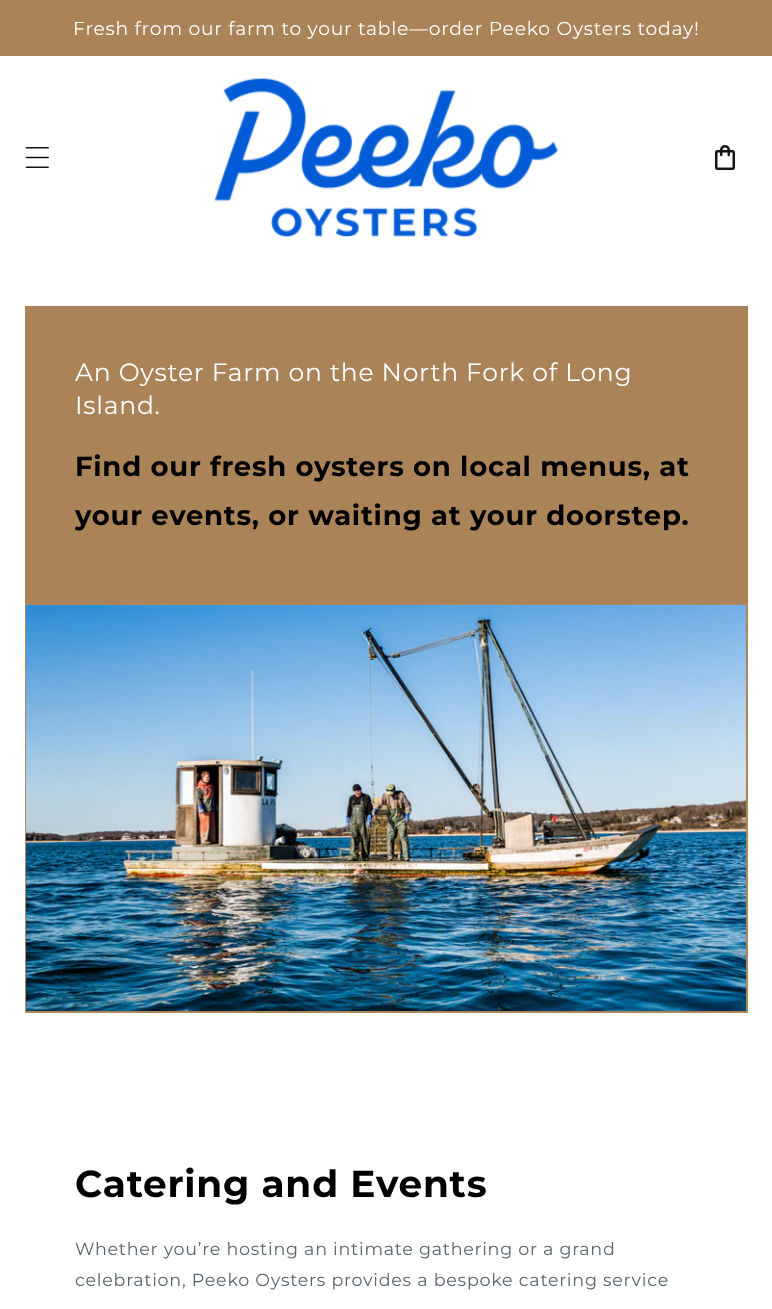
(async () => {
const canvas = document.querySelector("canvas")
canvas.width = 772
canvas.height = 1309
const c = canvas.getContext("2d")
c.miterLimit = 4
c.fontKerning = "normal"
function T(s,x,y){c.fillText(s,x,y)}
function R(x,y,w,h){c.fillRect(x,y,w,h)}
async function I(src,x,y,w,h){const img=new Image();img.src=src;await img.decode();c.drawImage(img,x,y,w,h)}
c.fillStyle="#fff"
R(0,0,772,1309)
c.fillStyle="#aa8458"
R(0,0,772,56)
c.letterSpacing="0.75px"
c.font="18.75px Montserrat"
c.fillStyle="#fff"
T("Fresh from our farm to your table—order Peeko Oysters today!",73,35)
await I("1.png",25,147,24,21)
await I("2.png",215,78,343,159)
await I("3.png",715,145,20,25)
c.fillStyle="#aa8458"
R(25,306,723,298)
c.font="25px Montserrat"
c.fillStyle="#fff"
T("An Oyster Farm on the North Fork of Long",75,381)
T("Island.",75,414)
c.font="bold 27.5px Montserrat"
c.fillStyle="#000"
T("Find our fresh oysters on local menus, at",75,476)
T("your events, or waiting at your doorstep.",75,525)
c.fillStyle="#aa8458"
c.beginPath()
c.rect(25.5,604.5,722,408)
c.fill()
c.strokeStyle="#ae8a60"
c.stroke()
await I("4.png",26,605,720,406)
c.font="bold 37.5px Montserrat"
c.fillStyle="#000"
T("Catering and Events",75,1197)
c.font="17.5px Montserrat"
c.fillStyle="#59646e"
T("Whether you’re hosting an intimate gathering or a grand",75,1255)
T("celebration, Peeko Oysters provides a bespoke catering service",75,1286)
})()
